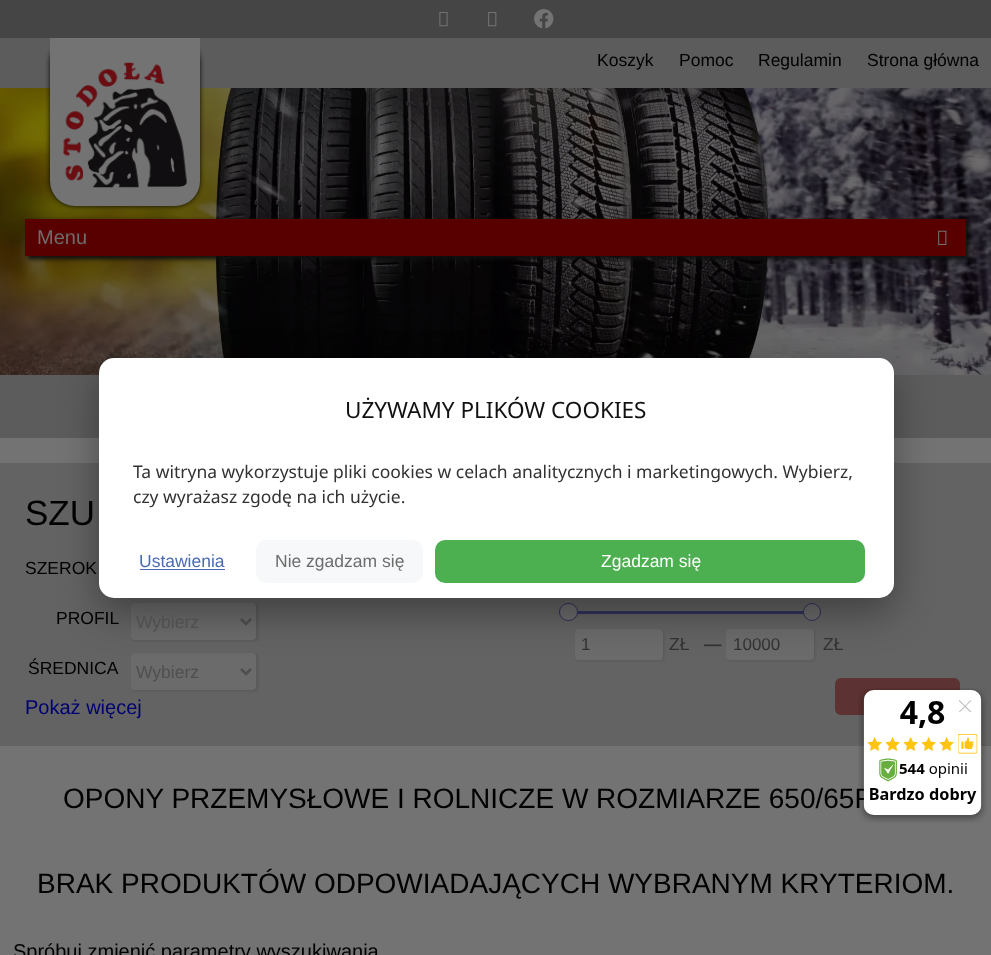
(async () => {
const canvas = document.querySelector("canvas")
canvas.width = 991
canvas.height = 955
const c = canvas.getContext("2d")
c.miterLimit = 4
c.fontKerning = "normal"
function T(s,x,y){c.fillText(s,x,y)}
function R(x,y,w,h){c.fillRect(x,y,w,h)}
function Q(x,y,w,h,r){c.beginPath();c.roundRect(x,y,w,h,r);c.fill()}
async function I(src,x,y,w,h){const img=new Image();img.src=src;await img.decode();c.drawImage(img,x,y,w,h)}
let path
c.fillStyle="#737373"
R(0,0,991,955)
c.fillStyle="#5c5c5c"
R(0,38,991,50)
await I("5.png",0,88,991,287)
c.fillStyle="#070707"
c.filter="blur(2.5px)"
c.beginPath()
c.roundRect(50,38,150,168,25)
c.fill()
c.filter="none"
c.fillStyle="#454545"
R(0,0,991,38)
await I("1.png",439,12,9,15)
await I("2.png",488,12,9,15)
await I("3.png",534,9,20,20)
c.fillStyle="#737373"
c.beginPath()
c.roundRect(50,38,150,168,[0,0,25,25])
c.fill()
await I("4.png",63,62,125,126)
c.font="17.5px Liberation Sans"
c.fillStyle="#000"
T("Koszyk",597,66)
T("Pomoc",679,66)
T("Regulamin",758,66)
T("Strona główna",867,66)
c.fillStyle="#5c5c5c"
R(0,375,991,63)
c.fillStyle="#0f0f0f"
c.filter="blur(2px)"
c.beginPath()
c.rect(28,221,941,38)
c.fill()
c.filter="none"
c.fillStyle="#580000"
R(25,219,941,37)
c.font="20px Liberation Sans"
c.fillStyle="#6d6d6d"
T("Menu",37,244)
await I("6.png",938,230,9,15)
c.fillStyle="#636363"
R(0,463,991,283)
c.fillStyle="#585858"
c.filter="blur(1px)"
c.beginPath()
c.roundRect(133,604,125,37,4)
c.fill()
c.filter="none"
c.fillStyle="#6b6b6b"
Q(131,603,125,37,4)
path = new Path2D("M241 619l5 5l5-5")
c.strokeStyle="#4f4f4f"
c.lineWidth=2.5
c.stroke(path)
c.fillStyle="#585858"
c.filter="blur(1px)"
c.beginPath()
c.roundRect(133,654,125,37,4)
c.fill()
c.filter="none"
c.fillStyle="#6b6b6b"
Q(131,653,125,37,4)
path = new Path2D("M241 669l5 5l5-5")
c.stroke(path)
c.fillStyle="#32325a"
R(559,611,262,3)
c.fillStyle="#6b6b6b"
c.beginPath()
c.roundRect(559.5,603.5,18,17,8.5)
c.fill()
c.strokeStyle="#32325a"
c.lineWidth=1
c.stroke()
c.beginPath()
c.arc(812,612,8.5,0,7)
c.fill()
c.stroke()
c.fillStyle="#585858"
c.filter="blur(1px)"
c.beginPath()
c.roundRect(576,630,88,31,4)
c.fill()
c.filter="none"
c.fillStyle="#6b6b6b"
Q(575,629,88,31,4)
c.fillStyle="#585858"
c.filter="blur(1px)"
c.beginPath()
c.roundRect(728,630,87,31,4)
c.fill()
c.filter="none"
c.fillStyle="#6b6b6b"
Q(726,629,88,31,4)
c.fillStyle="#00000059"
c.filter="blur(19px)"
c.beginPath()
c.roundRect(99,373,795,240,15)
c.fill()
c.filter="none"
c.fillStyle="#fff"
Q(99,358,795,240,15)
c.font="22.5px Noto Sans"
c.fillStyle="#111"
T("UŻYWAMY PLIKÓW COOKIES",345,418)
c.font="17.5px Noto Sans"
c.fillStyle="#323232"
T("Ta witryna wykorzystuje pliki cookies w celach analitycznych i marketingowych. Wybierz,",133,478)
T("czy wyrażasz zgodę na ich użycie.",133,503)
c.font="17.5px Liberation Sans"
c.fillStyle="#4a6bb3"
T("Ustawienia",139,567)
R(140,569,85,1)
c.fillStyle="#f7f8f9"
Q(256,540,167,43,10)
c.fillStyle="#6d6d6d"
T("Nie zgadzam się",275,567)
c.fillStyle="#4caf50"
Q(435,540,430,43,10)
c.fillStyle="#fff"
T("Zgadzam się",601,567)
c.font="35px Liberation Sans"
c.fillStyle="#000"
T("SZU",25,525)
c.font="17.5px Liberation Sans"
T("SZEROK",25,574)
T("PROFIL",56,624)
c.fillStyle="#4f4f4f"
T("Wybierz",136,628)
c.fillStyle="#000"
T("ŚREDNICA",28,674)
c.fillStyle="#4f4f4f"
T("Wybierz",136,678)
c.font="20px Liberation Sans"
c.fillStyle="#000073"
T("Pokaż więcej",25,714)
c.font="17px Liberation Sans"
c.fillStyle="#323232"
T("1",581,650)
c.font="17.5px Liberation Sans"
T("ZŁ",669,650)
c.font="bold 17.5px Liberation Sans"
T("―",704,650)
c.font="17px Liberation Sans"
T("10000",733,650)
c.font="17.5px Liberation Sans"
T("ZŁ",823,650)
c.fillStyle="#5c3232"
Q(835,678,125,37,6)
c.font="28px Liberation Sans"
c.fillStyle="#000"
T("OPONY PRZEMYSŁOWE I ROLNICZE W ROZMIARZE 650/65R",63,808)
T("BRAK PRODUKTÓW ODPOWIADAJĄCYCH WYBRANYM KRYTERIOM.",37,893)
c.font="20px Liberation Sans"
T("Spróbuj zmienić parametry wyszukiwania",13,958)
await I("7.png",858,688,129,135)
})()
